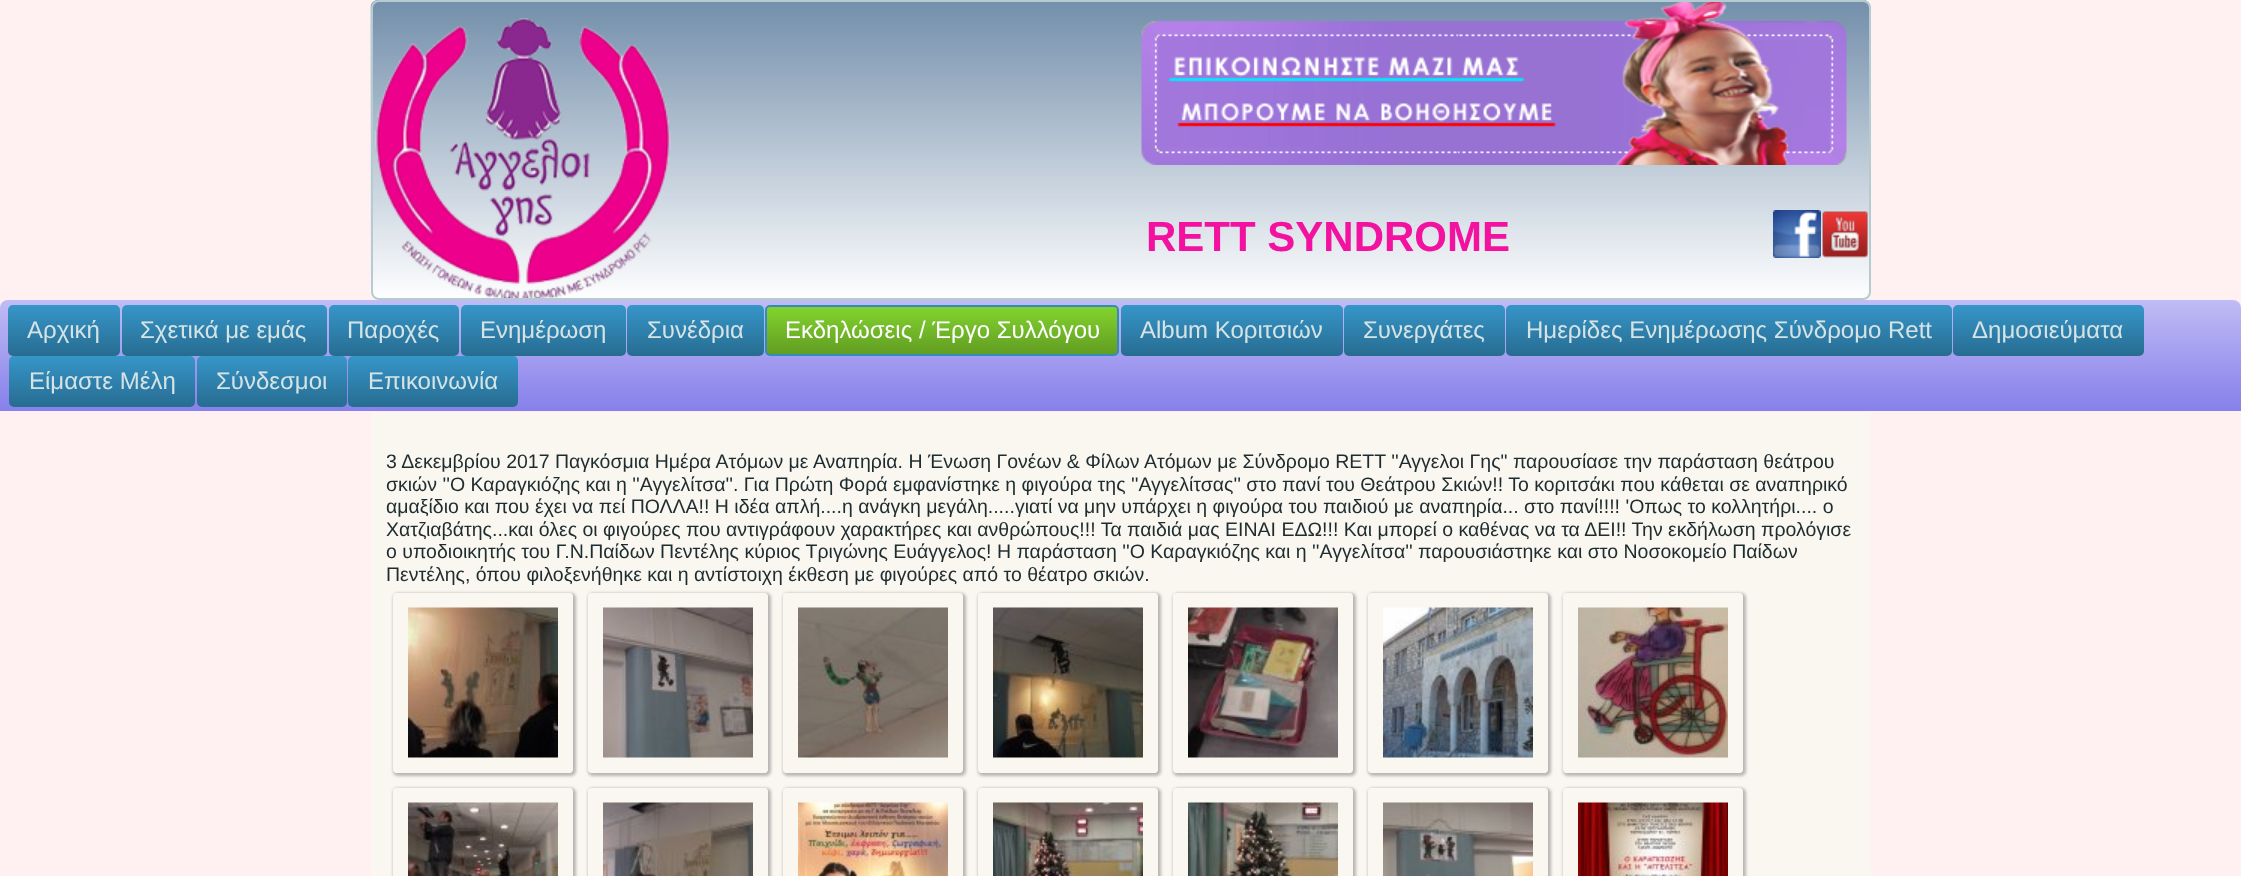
(async () => {
const canvas = document.querySelector("canvas")
canvas.width = 2241
canvas.height = 876
const c = canvas.getContext("2d")
c.miterLimit = 4
c.fontKerning = "normal"
function T(s,x,y){c.fillText(s,x,y)}
function R(x,y,w,h){c.fillRect(x,y,w,h)}
function Q(x,y,w,h,r){c.beginPath();c.roundRect(x,y,w,h,r);c.fill()}
async function I(src,x,y,w,h){const img=new Image();img.src=src;await img.decode();c.drawImage(img,x,y,w,h)}
let gradient, path
c.fillStyle="#fff0f2"
R(0,0,2241,876)
await I("1.png",370,0,1501,300)
c.beginPath()
c.roundRect(372,1,1498,298,7)
c.strokeStyle="#b4ccd0"
c.lineWidth=2
c.stroke()
c.font="bold 42px Liberation Sans"
c.fillStyle="#f312a0"
T("RETT SYNDROME",1146,251)
await I("2.png",1773,210,48,48)
await I("3.png",1822,211,46,47)
gradient = c.createLinearGradient(1121,300,1121,411)
gradient.addColorStop(0,"#c0bcf4")
gradient.addColorStop(1,"#8680eb")
c.fillStyle = gradient
c.beginPath()
c.roundRect(0,300,2241,111,[8,8,0,0])
c.fill()
gradient = c.createLinearGradient(64,305,64,356)
gradient.addColorStop(0,"#3696c9")
gradient.addColorStop(1,"#276c91")
c.fillStyle = gradient
Q(8,305,112,51,5)
c.font="24px Liberation Sans"
c.fillStyle="#d6e3e5"
T("Αρχική",27,338)
gradient = c.createLinearGradient(224,305,224,356)
gradient.addColorStop(0,"#3696c9")
gradient.addColorStop(1,"#276c91")
c.fillStyle = gradient
Q(122,305,205,51,5)
c.fillStyle="#d6e3e5"
T("Σχετικά με εμάς",140,338)
gradient = c.createLinearGradient(394,305,394,356)
gradient.addColorStop(0,"#3696c9")
gradient.addColorStop(1,"#276c91")
c.fillStyle = gradient
Q(329,305,130,51,5)
c.fillStyle="#d6e3e5"
T("Παροχές",347,338)
gradient = c.createLinearGradient(543,305,543,356)
gradient.addColorStop(0,"#3696c9")
gradient.addColorStop(1,"#276c91")
c.fillStyle = gradient
Q(461,305,165,51,5)
c.fillStyle="#d6e3e5"
T("Ενημέρωση",480,338)
gradient = c.createLinearGradient(695,305,695,356)
gradient.addColorStop(0,"#3696c9")
gradient.addColorStop(1,"#276c91")
c.fillStyle = gradient
Q(627,305,137,51,5)
c.fillStyle="#d6e3e5"
T("Συνέδρια",647,338)
gradient = c.createLinearGradient(942,305,942,356)
gradient.addColorStop(0,"#85d232")
gradient.addColorStop(.07,"#82d12e")
gradient.addColorStop(1,"#609b22")
c.fillStyle = gradient
c.beginPath()
c.roundRect(766,306,352,49,4)
c.fill()
c.strokeStyle="#328dbd"
c.stroke()
c.fillStyle="#fff"
T("Εκδηλώσεις / Έργο Συλλόγου",785,338)
gradient = c.createLinearGradient(1232,305,1232,356)
gradient.addColorStop(0,"#3696c9")
gradient.addColorStop(1,"#276c91")
c.fillStyle = gradient
Q(1121,305,222,51,5)
c.fillStyle="#d6e3e5"
T("Album Κοριτσιών",1140,338)
gradient = c.createLinearGradient(1424,305,1424,356)
gradient.addColorStop(0,"#3696c9")
gradient.addColorStop(1,"#276c91")
c.fillStyle = gradient
Q(1344,305,161,51,5)
c.fillStyle="#d6e3e5"
T("Συνεργάτες",1363,338)
gradient = c.createLinearGradient(1729,304,1729,356)
gradient.addColorStop(0,"#3696c9")
gradient.addColorStop(1,"#276c91")
c.fillStyle = gradient
Q(1506,305,446,51,5)
c.fillStyle="#d6e3e5"
T("Ημερίδες Ενημέρωσης Σύνδρομο Rett",1526,338)
gradient = c.createLinearGradient(2048,305,2048,356)
gradient.addColorStop(0,"#3696c9")
gradient.addColorStop(1,"#276c91")
c.fillStyle = gradient
Q(1953,305,191,51,5)
c.fillStyle="#d6e3e5"
T("Δημοσιεύματα",1972,338)
gradient = c.createLinearGradient(102,356,102,407)
gradient.addColorStop(0,"#3696c9")
gradient.addColorStop(1,"#276c91")
c.fillStyle = gradient
Q(9,356,186,51,5)
c.fillStyle="#d6e3e5"
T("Eίμαστε Μέλη",29,389)
gradient = c.createLinearGradient(272,356,272,407)
gradient.addColorStop(0,"#3696c9")
gradient.addColorStop(1,"#276c91")
c.fillStyle = gradient
Q(197,356,150,51,5)
c.fillStyle="#d6e3e5"
T("Σύνδεσμοι",216,389)
gradient = c.createLinearGradient(433,356,433,407)
gradient.addColorStop(0,"#3696c9")
gradient.addColorStop(1,"#276c91")
c.fillStyle = gradient
Q(348,356,170,51,5)
c.fillStyle="#d6e3e5"
T("Επικοινωνία",368,389)
c.fillStyle="#faf6f0"
R(371,413,1500,463)
c.font="19.5px Liberation Sans"
c.fillStyle="#1d2c2f"
T("3 Δεκεμβρίου 2017 Παγκόσμια Ημέρα Ατόμων με Αναπηρία. Η Ένωση Γονέων & Φίλων Ατόμων με Σύνδρομο RETT ''Αγγελοι Γης\" παρουσίασε την παράσταση θεάτρου",386,468)
T("σκιών ''Ο Καραγκιόζης και η ''Αγγελίτσα''. Για Πρώτη Φορά εμφανίστηκε η φιγούρα της ''Αγγελίτσας'' στο πανί του Θεάτρου Σκιών!! Το κοριτσάκι που κάθεται σε αναπηρικό",386,491)
T("αμαξίδιο και που έχει να πεί ΠΟΛΛΑ!! Η ιδέα απλή....η ανάγκη μεγάλη.....γιατί να μην υπάρχει η φιγούρα του παιδιού με αναπηρία... στο πανί!!!! 'Οπως το κολλητήρι.... ο",386,513)
T("Χατζιαβάτης...και όλες οι φιγούρες που αντιγράφουν χαρακτήρες και ανθρώπους!!! Τα παιδιά μας ΕΙΝΑΙ ΕΔΩ!!! Και μπορεί ο καθένας να τα ΔΕΙ!! Την εκδήλωση προλόγισε",386,536)
T("ο υποδιοικητής του Γ.Ν.Παίδων Πεντέλης κύριος Τριγώνης Ευάγγελος! Η παράσταση ''Ο Καραγκιόζης και η ''Αγγελίτσα'' παρουσιάστηκε και στο Νοσοκομείο Παίδων",386,558)
T("Πεντέλης, όπου φιλοξενήθηκε και η αντίστοιχη έκθεση με φιγούρες από το θέατρο σκιών.",386,581)
c.save()
path = new Path2D("M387 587h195v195h-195zm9 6h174c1.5 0 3 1.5 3 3v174c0 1.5-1.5 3-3 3h-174c-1.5 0-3-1.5-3-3v-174c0-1.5 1.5-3 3-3z")
c.clip(path,"evenodd")
c.fillStyle="#78787880"
c.filter="blur(1.5px)"
c.beginPath()
c.roundRect(393,593,183,183,5)
c.fill()
c.filter="none"
c.restore()
await I("4.png",408,607,150,151)
c.save()
path = new Path2D("M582 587h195v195h-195zm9 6h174c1.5 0 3 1.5 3 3v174c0 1.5-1.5 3-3 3h-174c-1.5 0-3-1.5-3-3v-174c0-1.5 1.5-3 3-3z")
c.clip(path,"evenodd")
c.fillStyle="#78787880"
c.filter="blur(1.5px)"
c.beginPath()
c.roundRect(588,593,183,183,5)
c.fill()
c.filter="none"
c.restore()
await I("5.png",603,607,150,151)
c.save()
path = new Path2D("M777 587h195v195h-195zm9 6h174c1.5 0 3 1.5 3 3v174c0 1.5-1.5 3-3 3h-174c-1.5 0-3-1.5-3-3v-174c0-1.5 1.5-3 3-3z")
c.clip(path,"evenodd")
c.fillStyle="#78787880"
c.filter="blur(1.5px)"
c.beginPath()
c.roundRect(783,593,183,183,5)
c.fill()
c.filter="none"
c.restore()
await I("6.png",798,607,150,151)
c.save()
path = new Path2D("M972 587h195v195h-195zm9 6h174c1.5 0 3 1.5 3 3v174c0 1.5-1.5 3-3 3h-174c-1.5 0-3-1.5-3-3v-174c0-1.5 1.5-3 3-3z")
c.clip(path,"evenodd")
c.fillStyle="#78787880"
c.filter="blur(1.5px)"
c.beginPath()
c.roundRect(978,593,183,183,5)
c.fill()
c.filter="none"
c.restore()
await I("7.png",993,607,150,151)
c.save()
path = new Path2D("M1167 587h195v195h-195zm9 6h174c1.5 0 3 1.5 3 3v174c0 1.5-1.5 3-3 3h-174c-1.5 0-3-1.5-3-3v-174c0-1.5 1.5-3 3-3z")
c.clip(path,"evenodd")
c.fillStyle="#78787880"
c.filter="blur(1.5px)"
c.beginPath()
c.roundRect(1173,593,183,183,5)
c.fill()
c.filter="none"
c.restore()
await I("8.png",1188,607,150,151)
c.save()
path = new Path2D("M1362 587h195v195h-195zm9 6h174c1.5 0 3 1.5 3 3v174c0 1.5-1.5 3-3 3h-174c-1.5 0-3-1.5-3-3v-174c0-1.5 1.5-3 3-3z")
c.clip(path,"evenodd")
c.fillStyle="#78787880"
c.filter="blur(1.5px)"
c.beginPath()
c.roundRect(1368,593,183,183,5)
c.fill()
c.filter="none"
c.restore()
await I("9.png",1383,607,150,151)
c.save()
path = new Path2D("M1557 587h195v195h-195zm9 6h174c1.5 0 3 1.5 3 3v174c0 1.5-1.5 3-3 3h-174c-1.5 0-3-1.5-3-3v-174c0-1.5 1.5-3 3-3z")
c.clip(path,"evenodd")
c.fillStyle="#78787880"
c.filter="blur(1.5px)"
c.beginPath()
c.roundRect(1563,593,183,183,5)
c.fill()
c.filter="none"
c.restore()
await I("10.png",1578,607,150,151)
c.save()
path = new Path2D("M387 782h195v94h-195zm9 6h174c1.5 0 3 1.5 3 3v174c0 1.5-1.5 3-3 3h-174c-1.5 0-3-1.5-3-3v-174c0-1.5 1.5-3 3-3z")
c.clip(path,"evenodd")
c.fillStyle="#78787880"
c.filter="blur(1.5px)"
c.beginPath()
c.roundRect(393,788,183,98,5)
c.fill()
c.filter="none"
c.restore()
await I("11.png",408,802,150,74)
c.save()
path = new Path2D("M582 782h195v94h-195zm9 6h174c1.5 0 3 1.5 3 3v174c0 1.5-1.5 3-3 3h-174c-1.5 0-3-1.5-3-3v-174c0-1.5 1.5-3 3-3z")
c.clip(path,"evenodd")
c.fillStyle="#78787880"
c.filter="blur(1.5px)"
c.beginPath()
c.roundRect(588,788,183,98,5)
c.fill()
c.filter="none"
c.restore()
await I("12.png",603,802,150,74)
c.save()
path = new Path2D("M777 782h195v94h-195zm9 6h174c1.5 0 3 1.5 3 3v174c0 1.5-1.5 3-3 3h-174c-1.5 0-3-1.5-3-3v-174c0-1.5 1.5-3 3-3z")
c.clip(path,"evenodd")
c.fillStyle="#78787880"
c.filter="blur(1.5px)"
c.beginPath()
c.roundRect(783,788,183,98,5)
c.fill()
c.filter="none"
c.restore()
await I("13.png",798,802,150,74)
c.save()
path = new Path2D("M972 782h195v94h-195zm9 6h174c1.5 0 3 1.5 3 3v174c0 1.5-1.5 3-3 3h-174c-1.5 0-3-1.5-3-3v-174c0-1.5 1.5-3 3-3z")
c.clip(path,"evenodd")
c.fillStyle="#78787880"
c.filter="blur(1.5px)"
c.beginPath()
c.roundRect(978,788,183,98,5)
c.fill()
c.filter="none"
c.restore()
await I("14.png",993,802,150,74)
c.save()
path = new Path2D("M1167 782h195v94h-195zm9 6h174c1.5 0 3 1.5 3 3v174c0 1.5-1.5 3-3 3h-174c-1.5 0-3-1.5-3-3v-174c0-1.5 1.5-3 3-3z")
c.clip(path,"evenodd")
c.fillStyle="#78787880"
c.filter="blur(1.5px)"
c.beginPath()
c.roundRect(1173,788,183,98,5)
c.fill()
c.filter="none"
c.restore()
await I("15.png",1188,802,150,74)
c.save()
path = new Path2D("M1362 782h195v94h-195zm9 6h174c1.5 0 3 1.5 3 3v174c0 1.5-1.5 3-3 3h-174c-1.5 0-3-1.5-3-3v-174c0-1.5 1.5-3 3-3z")
c.clip(path,"evenodd")
c.fillStyle="#78787880"
c.filter="blur(1.5px)"
c.beginPath()
c.roundRect(1368,788,183,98,5)
c.fill()
c.filter="none"
c.restore()
await I("16.png",1383,802,150,74)
c.save()
path = new Path2D("M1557 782h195v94h-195zm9 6h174c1.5 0 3 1.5 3 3v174c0 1.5-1.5 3-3 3h-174c-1.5 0-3-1.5-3-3v-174c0-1.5 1.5-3 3-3z")
c.clip(path,"evenodd")
c.fillStyle="#78787880"
c.filter="blur(1.5px)"
c.beginPath()
c.roundRect(1563,788,183,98,5)
c.fill()
c.filter="none"
c.restore()
await I("17.png",1578,802,150,74)
})()
